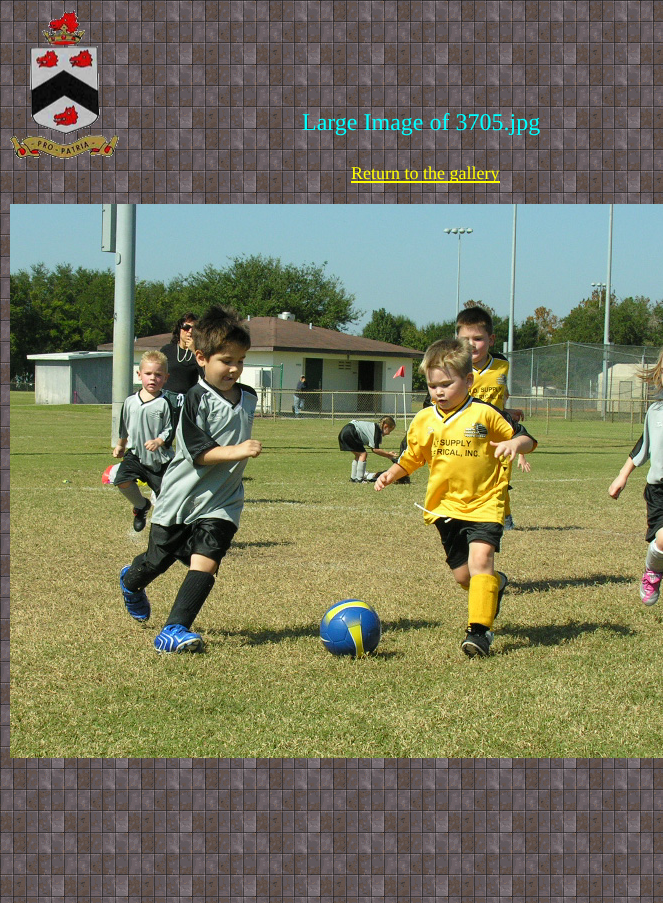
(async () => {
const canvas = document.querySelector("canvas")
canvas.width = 663
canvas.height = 903
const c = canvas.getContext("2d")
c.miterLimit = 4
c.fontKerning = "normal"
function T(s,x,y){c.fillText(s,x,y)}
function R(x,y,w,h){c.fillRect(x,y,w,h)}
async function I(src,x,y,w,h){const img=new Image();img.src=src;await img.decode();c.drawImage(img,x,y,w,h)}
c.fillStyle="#fff"
R(0,0,663,903)
await I("1.png",0,0,663,903)
await I("2.png",10,10,109,149)
c.font="24px Liberation Serif"
c.fillStyle="#0ff"
T("Large Image of 3705.jpg",302,130)
c.fillStyle="#ff0"
R(351,181,149,2)
c.font="18px Liberation Serif"
T("Return to the gallery",351,179)
await I("3.png",10,204,653,554)
})()
